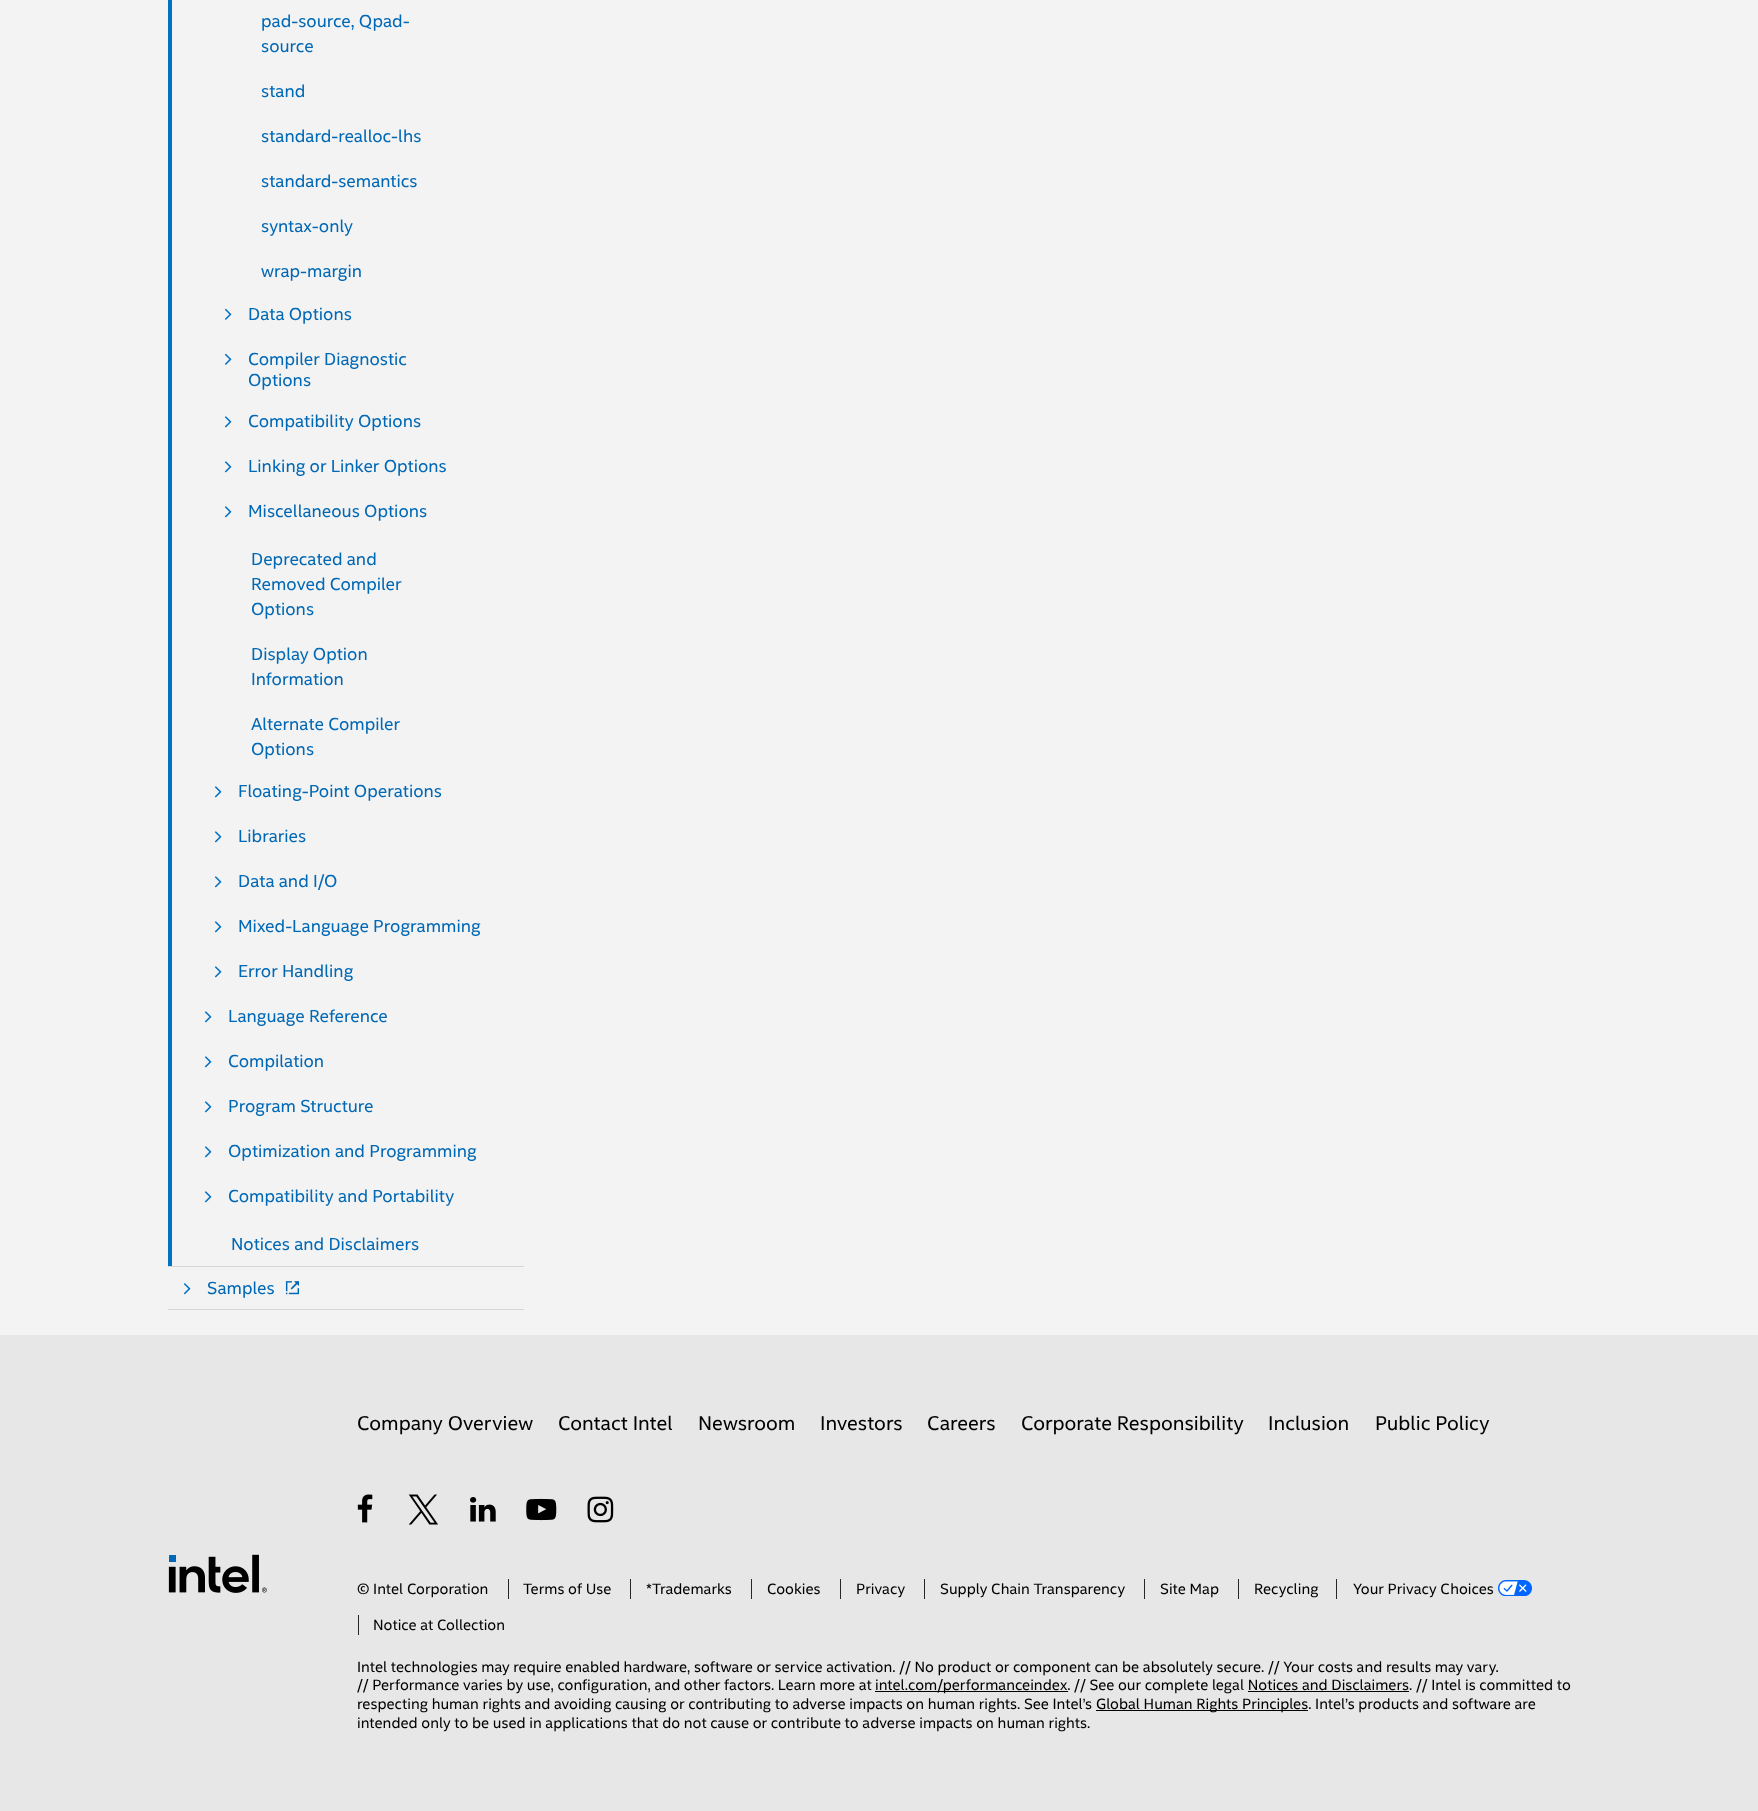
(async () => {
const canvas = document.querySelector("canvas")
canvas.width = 1758
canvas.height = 1811
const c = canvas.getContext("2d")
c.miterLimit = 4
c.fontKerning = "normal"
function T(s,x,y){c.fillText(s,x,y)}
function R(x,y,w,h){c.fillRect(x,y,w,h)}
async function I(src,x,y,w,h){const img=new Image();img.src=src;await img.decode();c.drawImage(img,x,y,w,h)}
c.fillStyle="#f3f3f3"
R(0,0,1758,1811)
c.fillStyle="#0071c5"
R(168,0,4,1266)
c.font="17.5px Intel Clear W"
c.fillStyle="#0068b5"
T("pad-source, Qpad-",261,27)
T("source",261,52)
T("stand",261,97)
T("standard-realloc-lhs",261,142)
T("standard-semantics",261,187)
T("syntax-only",261,232)
T("wrap-margin",261,277)
await I("1.png",224,308,8,12)
T("Data Options",248,320)
await I("1.png",224,353,8,12)
T("Compiler Diagnostic",248,365)
T("Options",248,386)
await I("2.png",224,416,8,12)
T("Compatibility Options",248,427)
await I("2.png",224,461,8,12)
T("Linking or Linker Options",248,472)
await I("2.png",224,506,8,12)
T("Miscellaneous Options",248,517)
T("Deprecated and",251,565)
T("Removed Compiler",251,590)
T("Options",251,615)
T("Display Option",251,660)
T("Information",251,685)
T("Alternate Compiler",251,730)
T("Options",251,755)
await I("2.png",214,786,8,12)
T("Floating-Point Operations",238,797)
await I("2.png",214,831,8,12)
T("Libraries",238,842)
await I("2.png",214,876,8,12)
T("Data and I/O",238,887)
await I("2.png",214,921,8,12)
T("Mixed-Language Programming",238,932)
await I("2.png",214,966,8,12)
T("Error Handling",238,977)
await I("2.png",204,1011,8,12)
T("Language Reference",228,1022)
await I("2.png",204,1056,8,12)
T("Compilation",228,1067)
await I("2.png",204,1101,8,12)
T("Program Structure",228,1112)
await I("2.png",204,1146,8,12)
T("Optimization and Programming",228,1157)
await I("2.png",204,1191,8,12)
T("Compatibility and Portability",228,1202)
T("Notices and Disclaimers",231,1250)
c.fillStyle="#d7d7d7"
R(168,1266,356,1)
R(168,1309,356,1)
await I("3.png",183,1283,8,12)
c.fillStyle="#0068b5"
T("Samples",207,1294)
await I("4.png",285,1281,14,14)
c.fillStyle="#e7e7e7"
R(0,1335,1758,476)
await I("5.png",168,1554,99,39)
c.font="20px Intel Clear W"
c.fillStyle="#000"
T("Company Overview",357,1430)
T("Contact Intel",558,1430)
T("Newsroom",698,1430)
T("Investors",820,1430)
T("Careers",927,1430)
T("Corporate Responsibility",1021,1430)
T("Inclusion",1268,1430)
T("Public Policy",1375,1430)
await I("6.png",357,1494,16,29)
await I("7.png",408,1494,30,31)
await I("8.png",470,1497,26,25)
await I("9.png",526,1498,31,23)
await I("10.png",587,1496,27,27)
c.font="15px Intel Clear W"
T("© Intel Corporation",357,1594)
T("Terms of Use",523,1594)
c.fillStyle="#262626"
R(508,1579,1,20)
c.fillStyle="#000"
T("*Trademarks",646,1594)
c.fillStyle="#262626"
R(630,1579,1,20)
c.fillStyle="#000"
T("Cookies",767,1594)
c.fillStyle="#262626"
R(751,1579,1,20)
c.fillStyle="#000"
T("Privacy",856,1594)
c.fillStyle="#262626"
R(840,1579,1,20)
c.fillStyle="#000"
T("Supply Chain Transparency",940,1594)
c.fillStyle="#262626"
R(924,1579,1,20)
c.fillStyle="#000"
T("Site Map",1160,1594)
c.fillStyle="#262626"
R(1144,1579,1,20)
c.fillStyle="#000"
T("Recycling",1254,1594)
c.fillStyle="#262626"
R(1238,1579,1,20)
R(1336,1579,1,20)
c.fillStyle="#000"
T("Your Privacy Choices",1353,1594)
await I("11.png",1498,1580,34,16)
T("Notice at Collection",373,1630)
c.fillStyle="#262626"
R(358,1615,1,20)
c.fillStyle="#000"
T("Intel technologies may require enabled hardware, software or service activation. // No product or component can be absolutely secure. // Your costs and results may vary.",357,1672)
T("// Performance varies by use, configuration, and other factors. Learn more at",357,1690)
R(875,1691,193,1)
T("intel.com/performanceindex. // See our complete legal Notices and Disclaimers. // Intel is committed to",875,1690)
R(1248,1691,161,1)
T("respecting human rights and avoiding causing or contributing to adverse impacts on human rights. See Intel’s",357,1709)
R(1096,1710,212,1)
T("Global Human Rights Principles. Intel’s products and software are",1096,1709)
T("intended only to be used in applications that do not cause or contribute to adverse impacts on human rights.",357,1728)
})()
